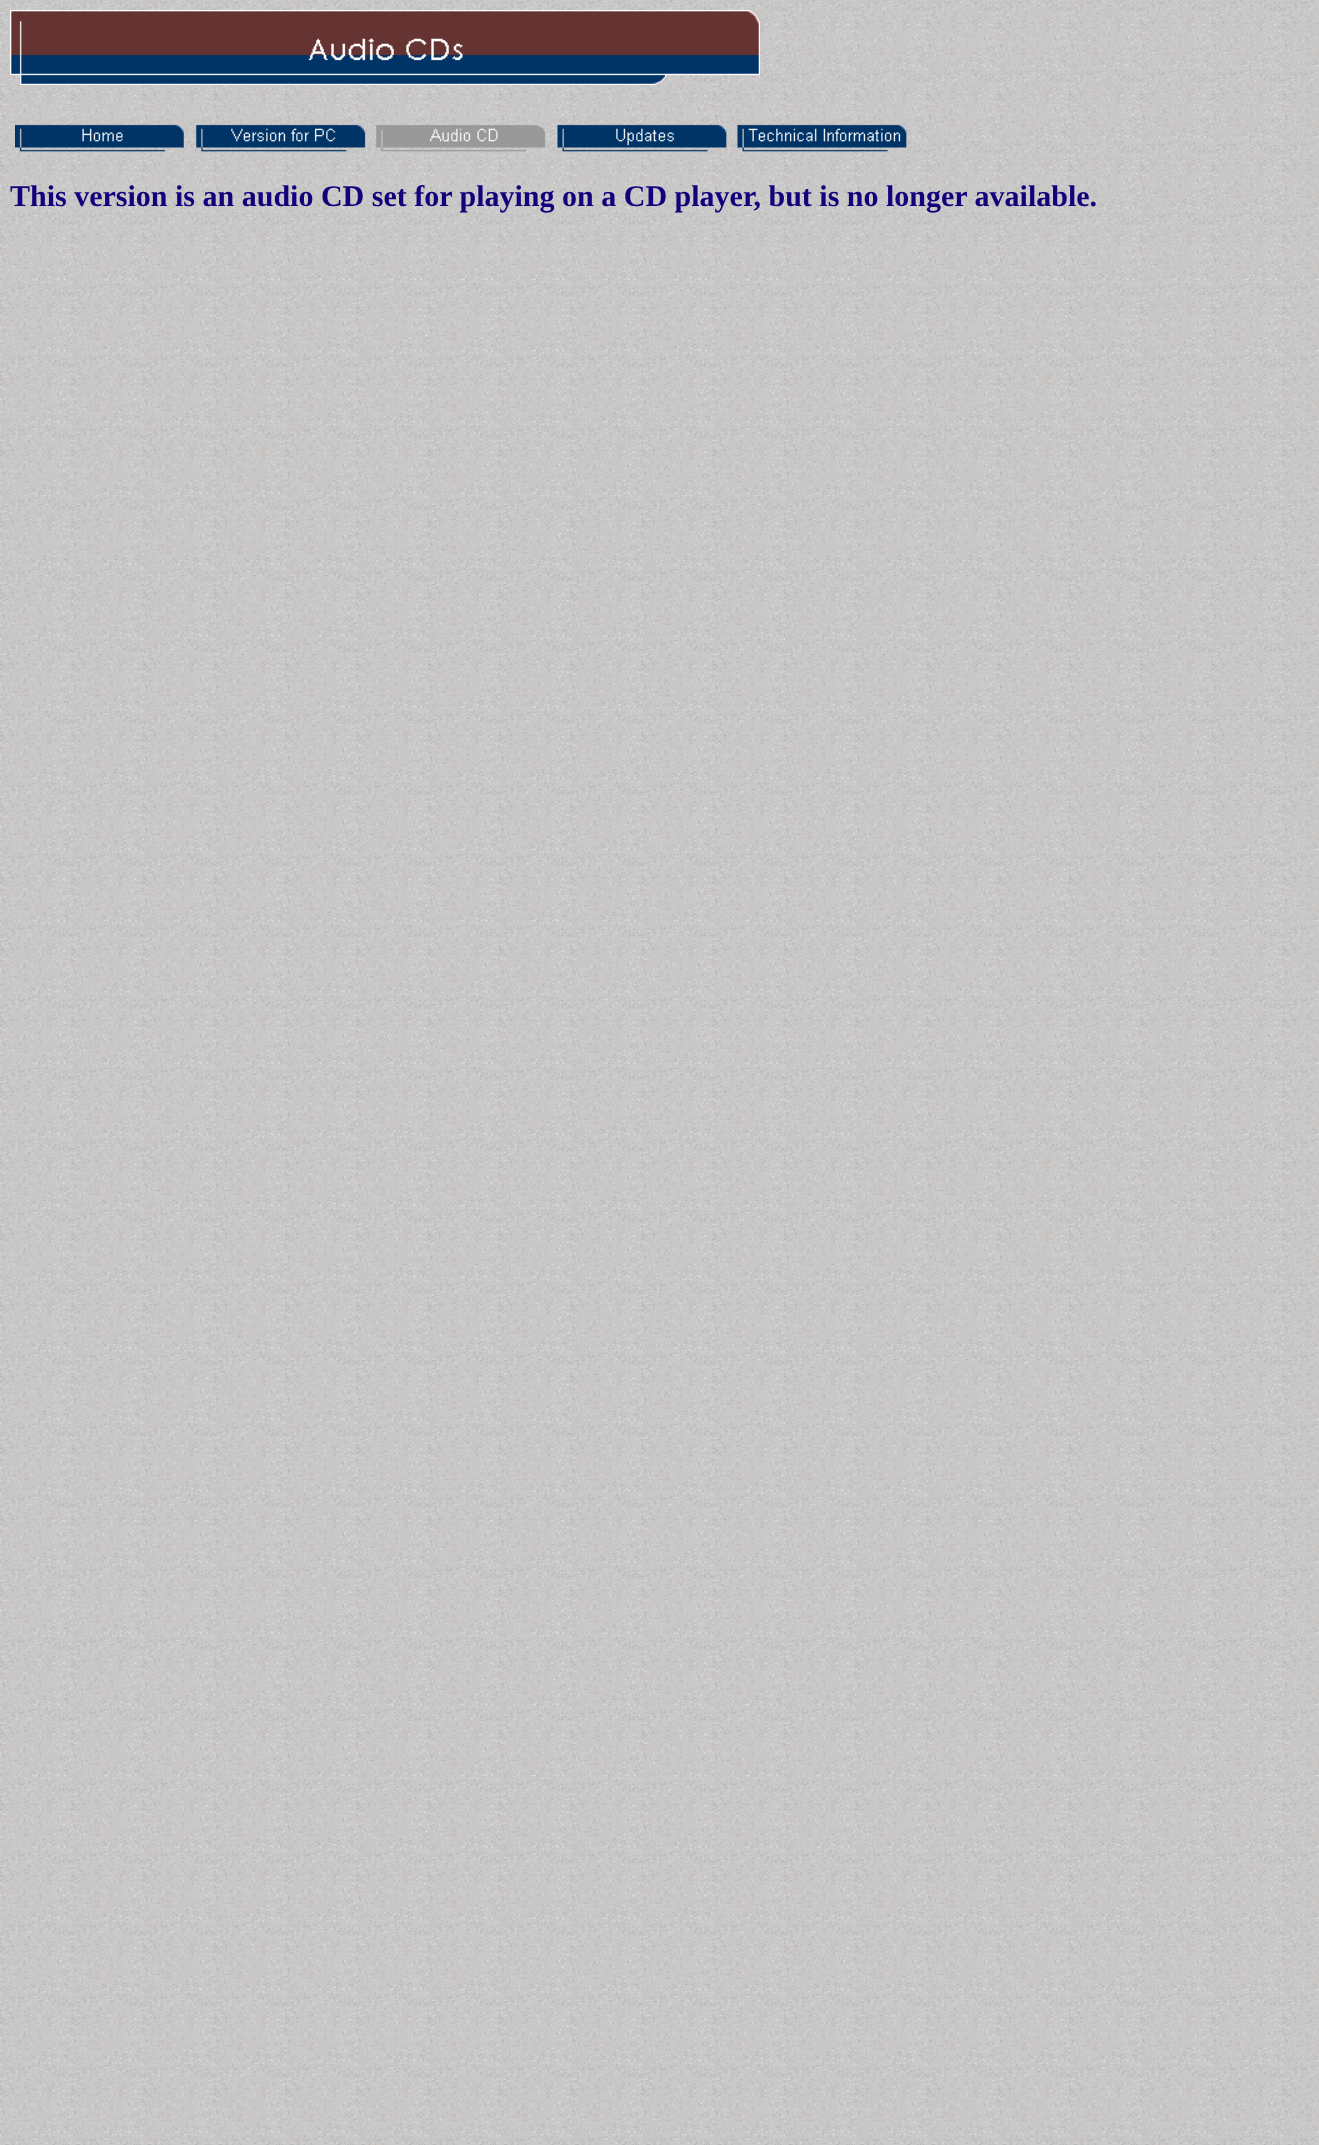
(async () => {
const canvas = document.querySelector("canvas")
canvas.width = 1319
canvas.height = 2145
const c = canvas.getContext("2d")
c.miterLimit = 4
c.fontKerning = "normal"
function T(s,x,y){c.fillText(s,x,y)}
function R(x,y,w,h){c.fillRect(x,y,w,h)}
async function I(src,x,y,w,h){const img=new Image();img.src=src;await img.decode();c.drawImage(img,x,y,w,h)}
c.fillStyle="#fff"
R(0,0,1319,2145)
await I("1.png",0,0,1319,2145)
await I("2.png",10,10,750,75)
await I("3.png",15,124,169,28)
await I("4.png",196,124,170,28)
await I("5.png",376,125,170,27)
await I("6.png",557,124,170,28)
await I("7.png",737,124,170,28)
c.font="bold 30px Liberation Serif"
c.fillStyle="#13017c"
T("This version is an audio CD set for playing on a CD player, but is no longer available.",10,206)
})()
